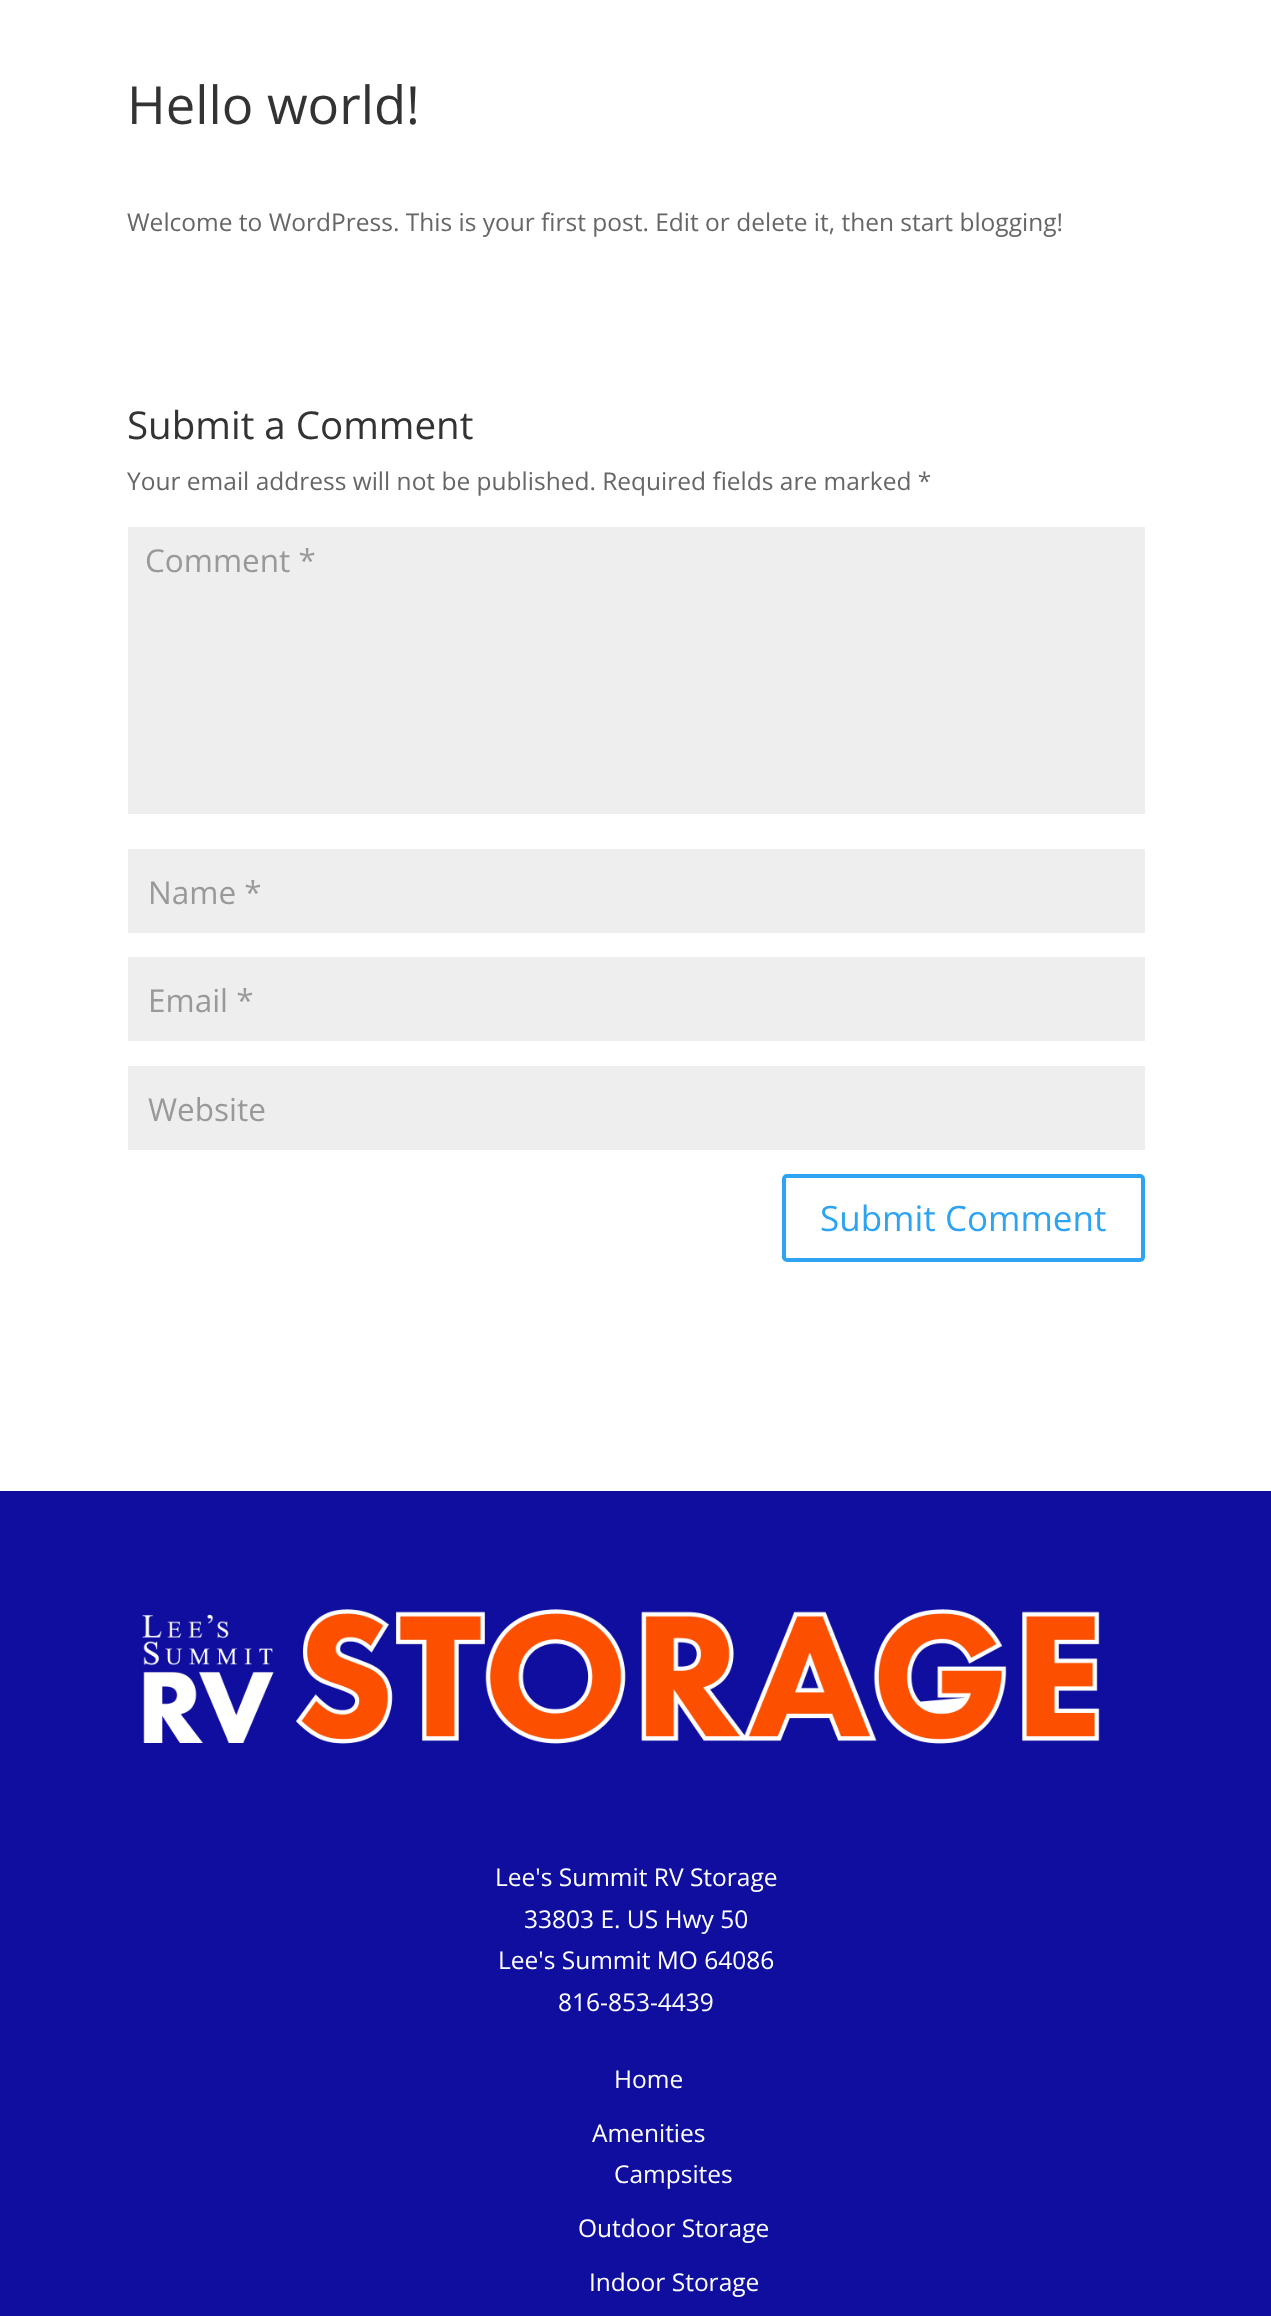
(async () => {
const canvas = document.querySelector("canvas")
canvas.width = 1271
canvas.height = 2316
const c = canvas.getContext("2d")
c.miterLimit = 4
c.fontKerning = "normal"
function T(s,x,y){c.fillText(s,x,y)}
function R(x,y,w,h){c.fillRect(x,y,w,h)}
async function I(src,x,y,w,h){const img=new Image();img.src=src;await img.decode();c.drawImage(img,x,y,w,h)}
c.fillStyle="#fff"
R(0,0,1271,2316)
c.font="52.5px Open Sans"
c.fillStyle="#333"
T("Hello world!",127,124)
c.font="24.5px Open Sans"
c.fillStyle="#666"
T("Welcome to WordPress. This is your first post. Edit or delete it, then start blogging!",127,231)
c.font="38.5px Open Sans"
c.fillStyle="#333"
T("Submit a Comment",127,439)
c.font="24.5px Open Sans"
c.fillStyle="#666"
T("Your email address will not be published. Required fields are marked *",127,490)
c.fillStyle="#eee"
R(128,527,1017,287)
c.font="31.5px Open Sans"
c.fillStyle="#999"
T("Comment *",145,572)
c.fillStyle="#eee"
R(128,849,1017,84)
c.fillStyle="#999"
T("Name *",148,904)
c.fillStyle="#eee"
R(128,957,1017,84)
c.fillStyle="#999"
T("Email *",148,1012)
c.fillStyle="#eee"
R(128,1066,1017,84)
c.fillStyle="#999"
T("Website",148,1121)
c.beginPath()
c.roundRect(784,1176,359,84,3)
c.strokeStyle="#2ea3f2"
c.lineWidth=4
c.stroke()
c.font="35px Open Sans"
c.fillStyle="#2ea3f2"
T("Submit Comment",820,1231)
c.fillStyle="#0f0e9f"
R(0,1491,1271,825)
await I("1.png",142,1609,958,135)
c.font="24.5px Open Sans"
c.fillStyle="#fff"
T("Lee's Summit RV Storage",495,1886)
T("33803 E. US Hwy 50",524,1928)
T("Lee's Summit MO 64086",498,1969)
T("816-853-4439",558,2011)
T("Home",614,2088)
T("Amenities",592,2142)
T("Campsites",614,2183)
T("Outdoor Storage",578,2237)
T("Indoor Storage",589,2291)
})()
